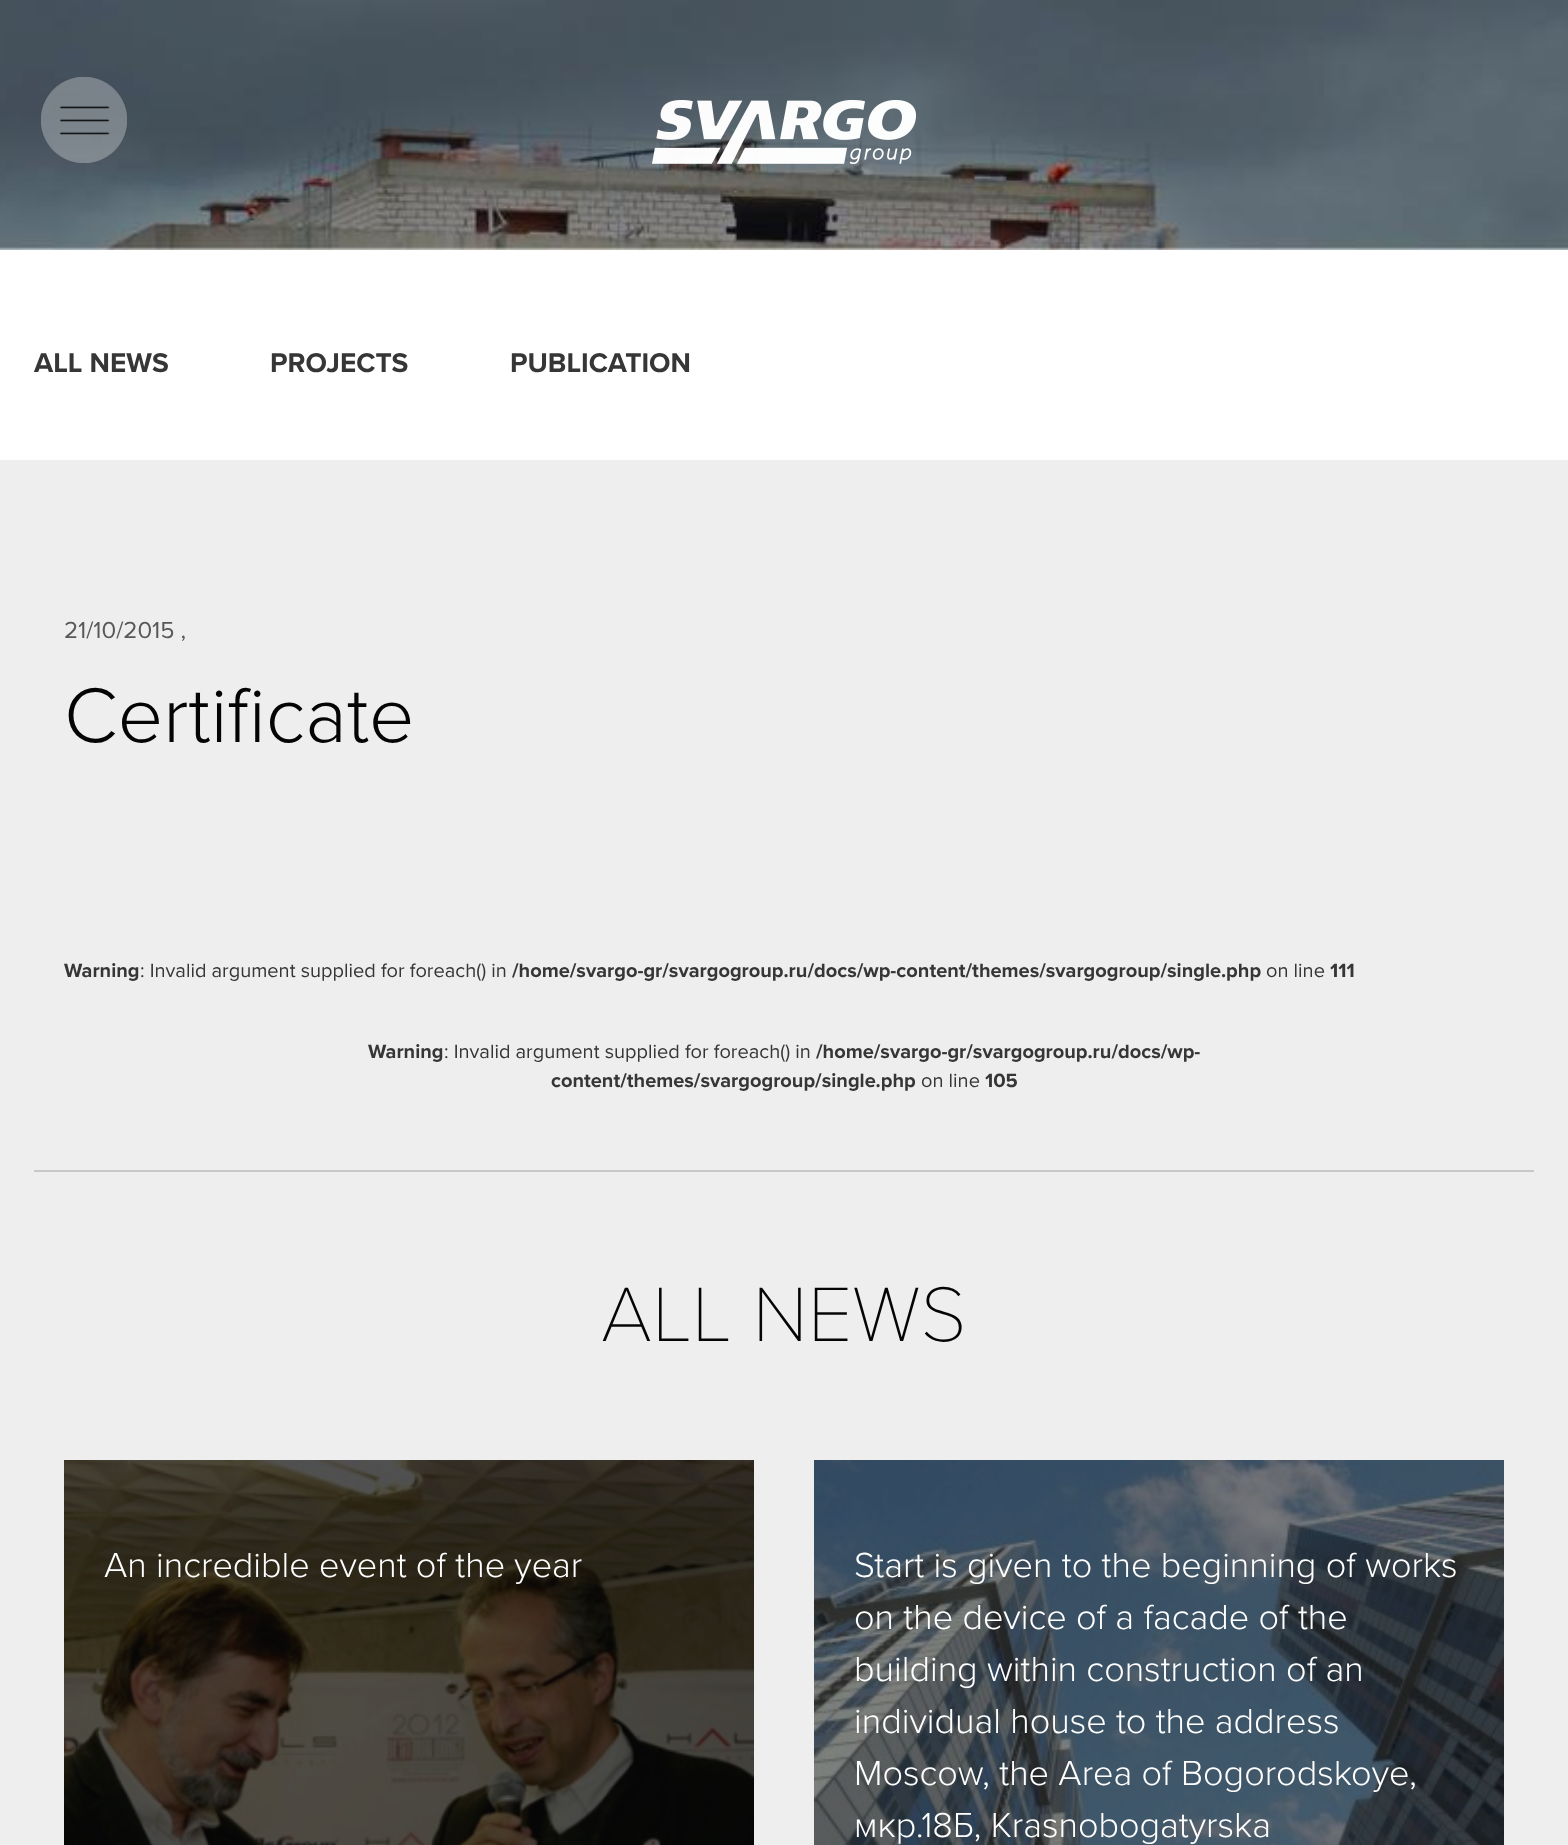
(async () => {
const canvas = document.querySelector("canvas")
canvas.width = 1568
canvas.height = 1845
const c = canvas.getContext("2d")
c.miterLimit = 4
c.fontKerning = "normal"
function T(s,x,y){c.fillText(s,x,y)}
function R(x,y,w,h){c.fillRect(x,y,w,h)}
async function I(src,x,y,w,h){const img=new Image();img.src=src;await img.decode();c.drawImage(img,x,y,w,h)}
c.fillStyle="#fff"
R(0,0,1568,1845)
await I("1.png",0,0,1568,250)
await I("2.png",41,77,86,86)
await I("3.png",652,100,264,64)
c.font="bold 28px Proxima Nova"
c.fillStyle="#363636"
T("ALL NEWS",34,372)
T("PROJECTS",270,372)
T("PUBLICATION",510,372)
c.fillStyle="#eee"
R(0,460,1568,1385)
c.fillStyle="#c8c8c8"
R(34,1170,1500,2)
c.font="24px Proxima Nova"
c.fillStyle="#585858"
T("21/10/2015 ,",64,638)
c.font="300 80px Proxima Nova"
c.fillStyle="#040404"
T("Certificate",64,742)
c.font="bold 20px Proxima Nova"
c.fillStyle="#363636"
T("Warning",64,977)
c.font="20px Proxima Nova"
T(": Invalid argument supplied for foreach() in",140,977)
c.font="bold 20px Proxima Nova"
T("/home/svargo-gr/svargogroup.ru/docs/wp-content/themes/svargogroup/single.php",512,977)
c.font="20px Proxima Nova"
T("on line",1266,977)
c.font="bold 20px Proxima Nova"
T("111",1330,977)
T("Warning",368,1058)
c.font="20px Proxima Nova"
T(": Invalid argument supplied for foreach() in",444,1058)
c.font="bold 20px Proxima Nova"
T("/home/svargo-gr/svargogroup.ru/docs/wp-",816,1058)
T("content/themes/svargogroup/single.php",551,1087)
c.font="20px Proxima Nova"
T("on line",921,1087)
c.font="bold 20px Proxima Nova"
T("105",985,1087)
c.font="100 80px Proxima Nova"
c.fillStyle="#040404"
T("ALL NEWS",601,1341)
await I("4.png",64,1460,690,385)
c.font="300 36px Proxima Nova"
c.fillStyle="#fff"
T("An incredible event of the year",104,1577)
await I("5.png",814,1460,690,385)
T("Start is given to the beginning of works",854,1577)
T("on the device of a facade of the",854,1629)
T("building within construction of an",854,1681)
T("individual house to the address",854,1733)
T("Moscow, the Area of Bogorodskoye,",854,1785)
T("мкр.18Б, Krasnobogatyrska",854,1837)
})()
